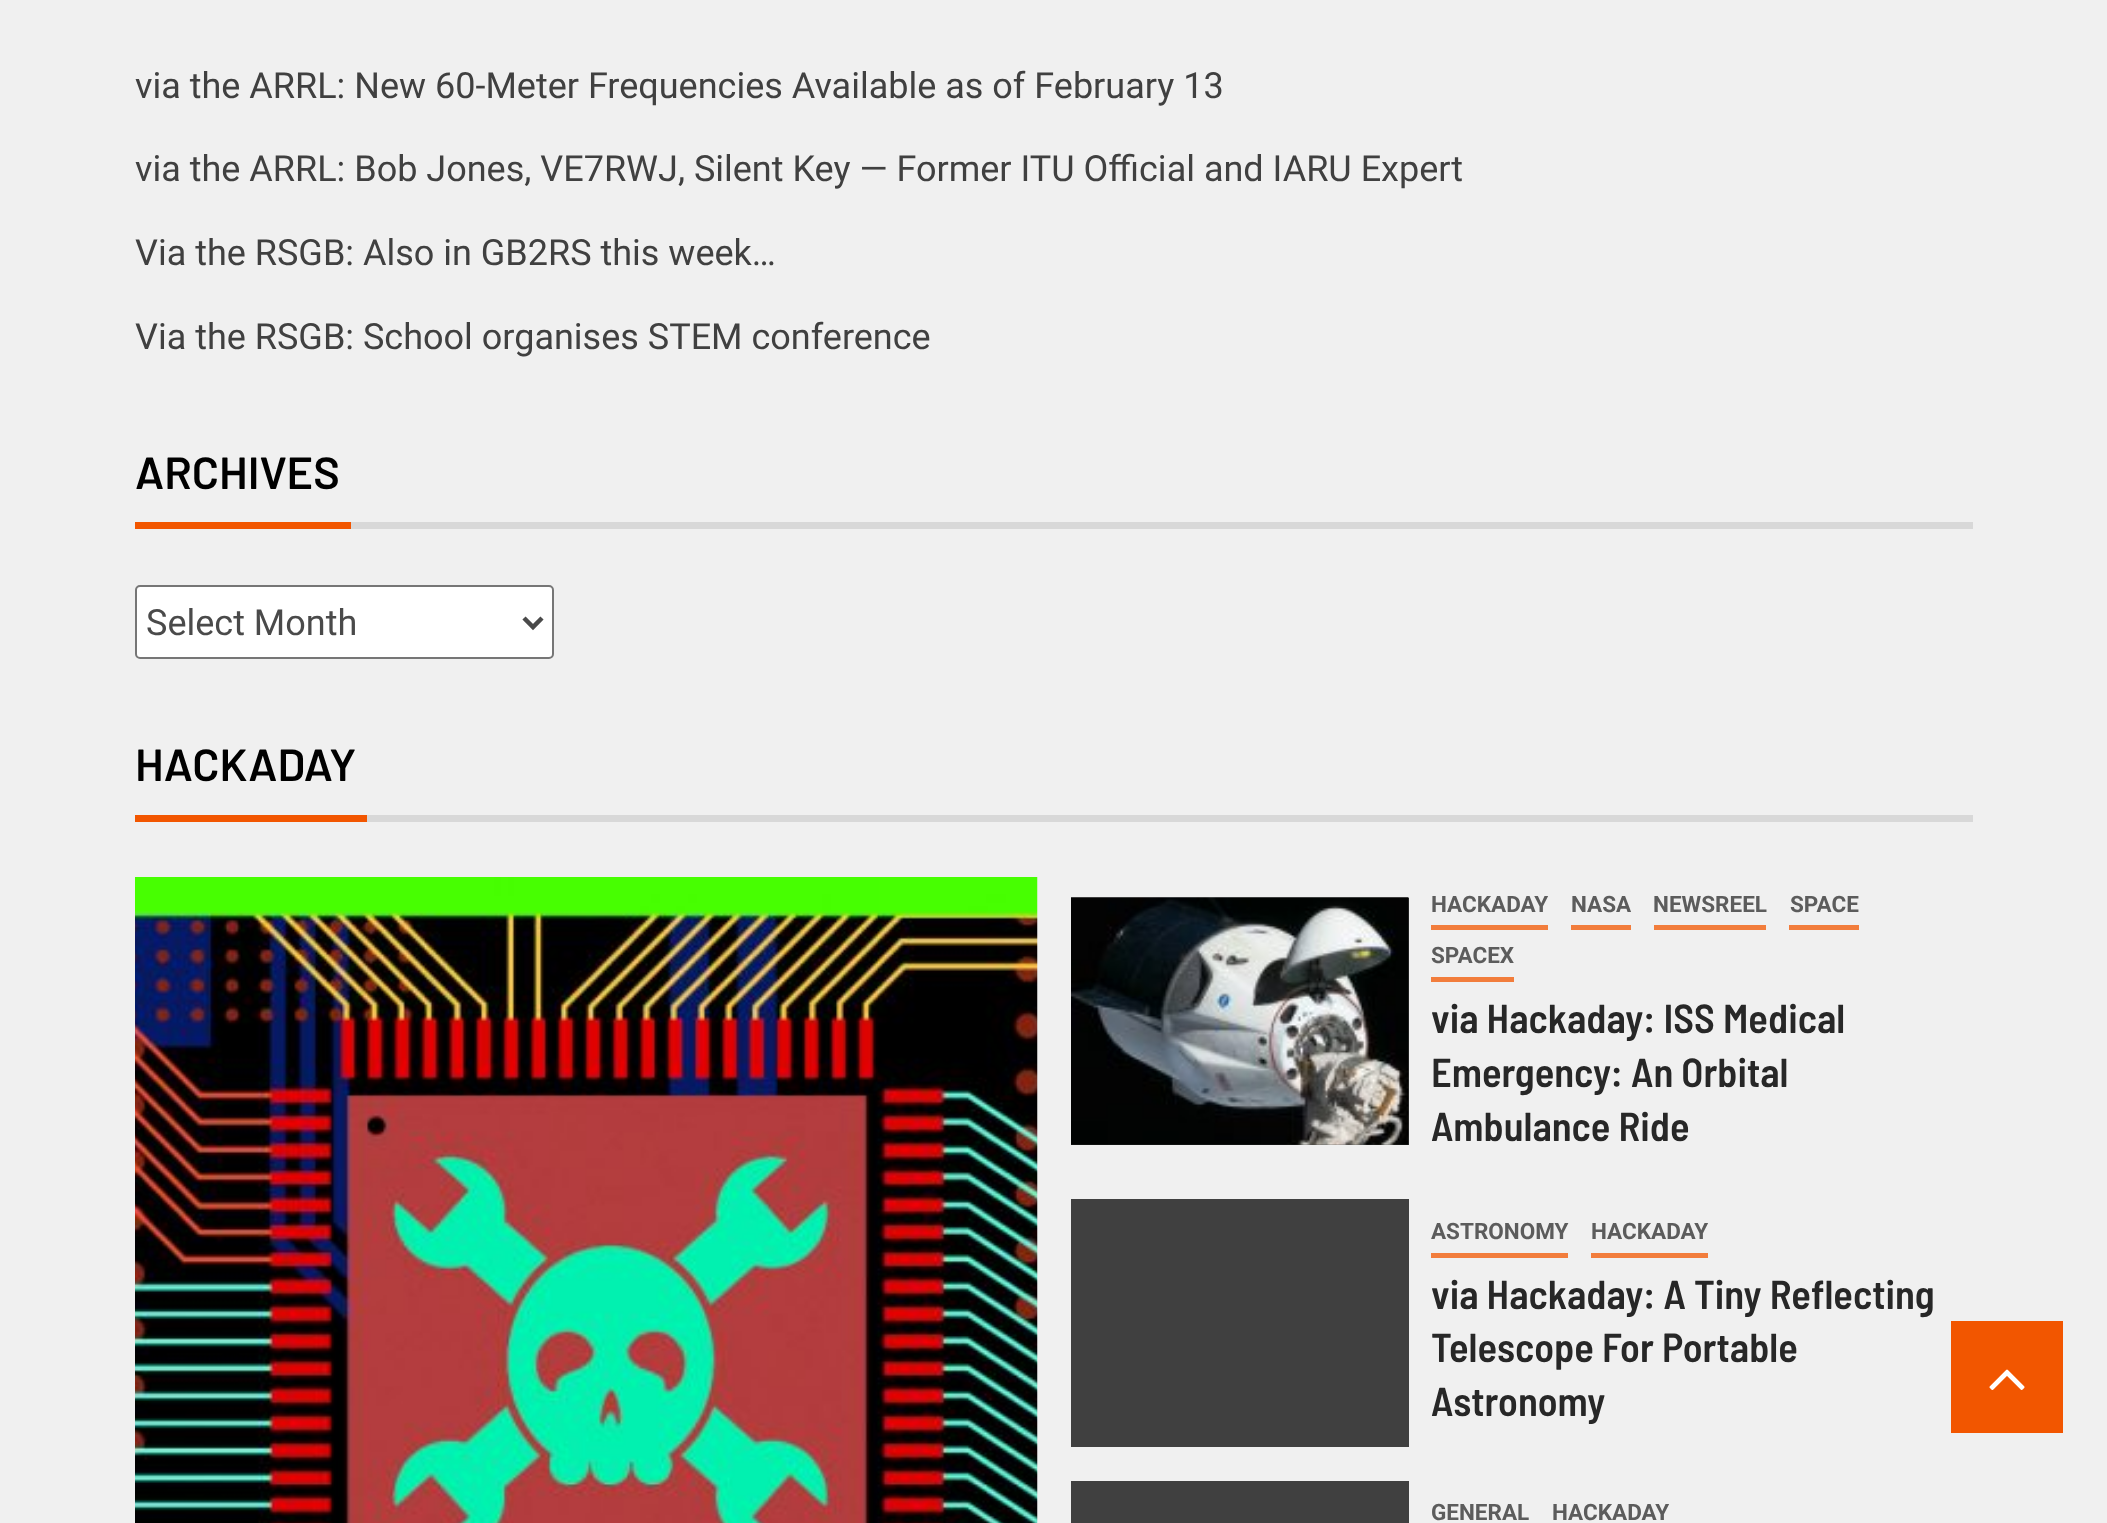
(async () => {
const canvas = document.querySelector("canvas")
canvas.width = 2107
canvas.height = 1523
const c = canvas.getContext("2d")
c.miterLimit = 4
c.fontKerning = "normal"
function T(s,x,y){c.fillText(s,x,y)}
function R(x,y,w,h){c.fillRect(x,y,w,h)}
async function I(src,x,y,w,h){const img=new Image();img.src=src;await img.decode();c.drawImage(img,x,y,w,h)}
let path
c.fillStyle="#f0f0f0"
R(0,0,2107,1523)
c.font="36px Roboto"
c.fillStyle="#404040"
T("via the ARRL: New 60-Meter Frequencies Available as of February 13",135,98)
T("via the ARRL: Bob Jones, VE7RWJ, Silent Key — Former ITU Official and IARU Expert",135,181)
T("Via the RSGB: Also in GB2RS this week…",135,265)
T("Via the RSGB: School organises STEM conference",135,349)
c.font="600 45px Barlow"
c.fillStyle="#000"
T("ARCHIVES",135,489)
c.fillStyle="#f25600"
R(135,522,216,7)
c.fillStyle="#d8d8d8"
R(351,522,1622,7)
c.fillStyle="#fff"
c.beginPath()
c.roundRect(136,586,417,72,4)
c.fill()
c.strokeStyle="#767676"
c.lineWidth=2
c.stroke()
path = new Path2D("M524 618l9 9l9-9")
c.strokeStyle="#4a4a4a"
c.lineWidth=4.5
c.stroke(path)
c.font="36px Roboto"
c.fillStyle="#4a4a4a"
T("Select Month",146,635)
c.font="600 45px Barlow"
c.fillStyle="#000"
T("HACKADAY",135,781)
c.fillStyle="#f25600"
R(135,815,232,7)
c.fillStyle="#d8d8d8"
R(367,815,1606,7)
await I("1.png",135,877,903,646)
c.fillStyle="#404040"
R(1071,898,338,247)
await I("2.png",1071,897,338,248)
c.fillStyle="#f27d3c"
R(1431,925,117,5)
c.font="bold 22.5px Roboto"
c.fillStyle="#5c5c5c"
T("HACKADAY",1431,912)
c.fillStyle="#f27d3c"
R(1571,925,60,5)
c.fillStyle="#5c5c5c"
T("NASA",1571,912)
c.fillStyle="#f27d3c"
R(1654,925,112,5)
c.fillStyle="#5c5c5c"
T("NEWSREEL",1653,912)
c.fillStyle="#f27d3c"
R(1789,925,70,5)
c.fillStyle="#5c5c5c"
T("SPACE",1790,912)
c.fillStyle="#f27d3c"
R(1431,977,83,5)
c.fillStyle="#5c5c5c"
T("SPACEX",1431,963)
c.font="600 40.5px Barlow Semi Condensed"
c.fillStyle="#272727"
T("via Hackaday: ISS Medical",1431,1033)
T("Emergency: An Orbital",1431,1087)
T("Ambulance Ride",1431,1141)
c.fillStyle="#404040"
R(1071,1199,338,248)
c.fillStyle="#f27d3c"
R(1431,1253,137,5)
c.font="bold 22.5px Roboto"
c.fillStyle="#5c5c5c"
T("ASTRONOMY",1431,1239)
c.fillStyle="#f27d3c"
R(1591,1253,117,5)
c.fillStyle="#5c5c5c"
T("HACKADAY",1591,1239)
c.font="600 40.5px Barlow Semi Condensed"
c.fillStyle="#272727"
T("via Hackaday: A Tiny Reflecting",1431,1309)
T("Telescope For Portable",1431,1362)
T("Astronomy",1431,1416)
c.fillStyle="#404040"
R(1071,1481,338,42)
c.font="bold 22.5px Roboto"
c.fillStyle="#5c5c5c"
T("GENERAL",1431,1520)
T("HACKADAY",1552,1520)
c.fillStyle="#f25600"
R(1951,1321,112,112)
await I("3.png",1989,1369,36,21)
})()
